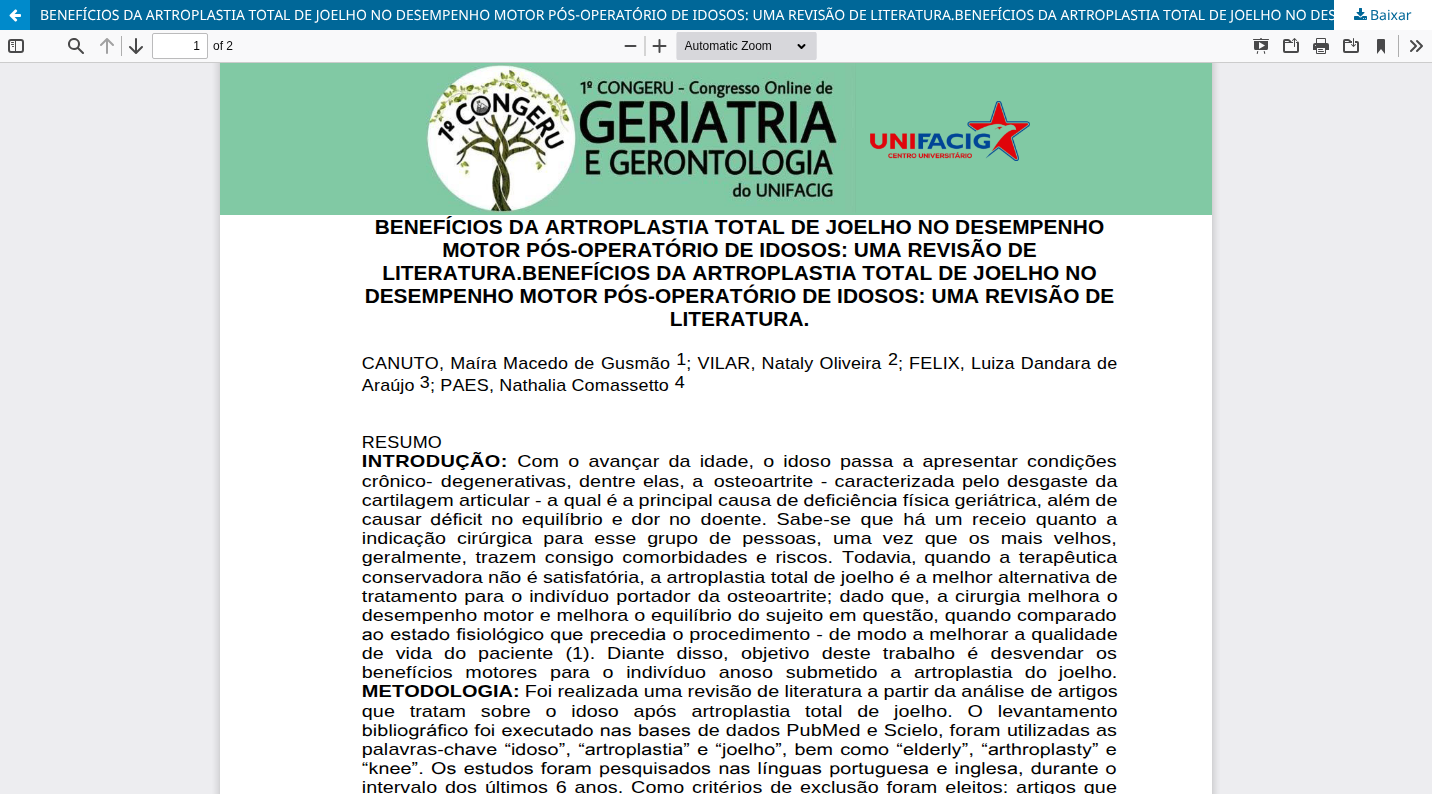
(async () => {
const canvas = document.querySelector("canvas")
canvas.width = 1432
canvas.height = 794
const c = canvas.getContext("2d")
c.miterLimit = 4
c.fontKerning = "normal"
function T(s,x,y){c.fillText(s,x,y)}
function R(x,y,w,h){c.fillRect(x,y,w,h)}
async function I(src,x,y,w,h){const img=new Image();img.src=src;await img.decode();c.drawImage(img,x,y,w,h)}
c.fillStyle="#fff"
R(0,0,1432,794)
c.fillStyle="#006798"
R(30,0,1304,30)
c.fillStyle="#008acb"
R(0,0,30,30)
await I("1.png",9,9,12,13)
c.font="14px Noto Sans"
c.fillStyle="#fff"
T("BENEFÍCIOS DA ARTROPLASTIA TOTAL DE JOELHO NO DESEMPENHO MOTOR PÓS-OPERATÓRIO DE IDOSOS: UMA REVISÃO DE LITERATURA.BENEFÍCIOS DA ARTROPLASTIA TOTAL DE JOELHO NO DES",40,20)
await I("2.png",1354,8,13,12)
c.fillStyle="#006798"
T("Baixar",1370,20)
await I("3.png",0,30,1432,764)
})()
